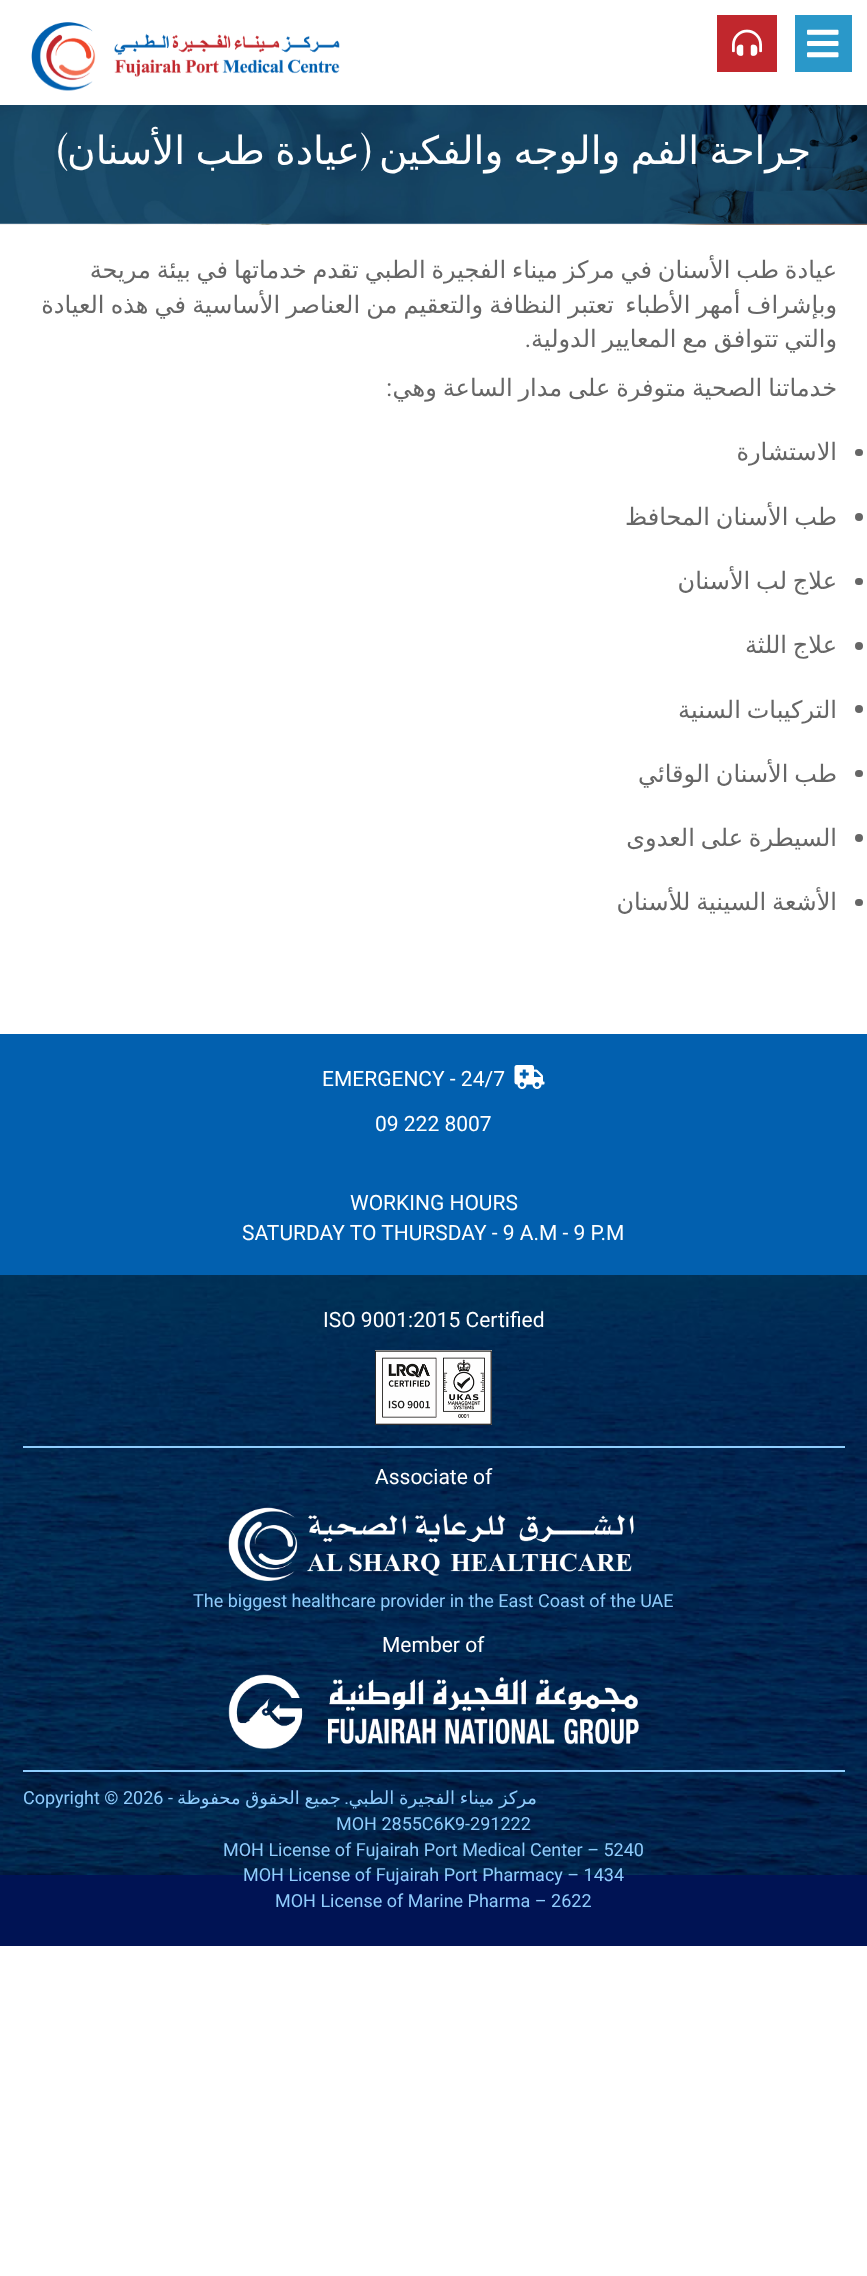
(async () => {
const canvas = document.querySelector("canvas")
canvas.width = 867
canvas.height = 2276
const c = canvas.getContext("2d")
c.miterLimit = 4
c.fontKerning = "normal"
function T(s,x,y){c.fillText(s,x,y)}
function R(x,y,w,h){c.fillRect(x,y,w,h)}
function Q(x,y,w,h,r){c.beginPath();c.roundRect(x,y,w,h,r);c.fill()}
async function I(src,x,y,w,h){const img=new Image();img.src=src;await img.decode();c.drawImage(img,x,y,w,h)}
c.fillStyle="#fff"
R(0,0,867,2276)
c.fillStyle="#2a98c9"
R(795,15,57,57)
await I("1.png",807,29,32,29)
c.fillStyle="#c1272d"
R(717,15,60,57)
await I("2.png",732,29,30,27)
await I("3.png",31,22,309,69)
c.fillStyle="#003962"
R(0,223,867,1)
await I("4.png",0,105,867,119)
c.wordSpacing="-2px"
c.direction="rtl"
c.font="39px DejaVu Sans"
c.fillStyle="#fff"
T("جراحة الفم والوجه والفكين",811,164)
c.wordSpacing="0px"
c.font="39px Playfair Display"
T("(",372,164)
c.wordSpacing="-2px"
c.font="39px DejaVu Sans"
T("عيادة طب الأسنان",360,164)
c.wordSpacing="0px"
c.font="39px Playfair Display"
T(")",68,164)
await I("5.png",0,223,867,2)
c.wordSpacing="-1.75px"
c.font="24px DejaVu Sans"
c.fillStyle="#666"
T("عيادة طب الأسنان في مركز ميناء الفجيرة الطبي تقدم خدماتها في بيئة مريحة",837,278)
c.wordSpacing="-1.5px"
T("وبإشراف أمهر الأطباء",837,313)
T("تعتبر النظافة والتعقيم من العناصر الأساسية في هذه العيادة",614,313)
c.wordSpacing="-1.75px"
T("والتي تتوافق مع المعايير الدولية",837,347)
c.wordSpacing="0px"
c.font="24px Roboto"
T(".",531,347)
c.wordSpacing="-1.75px"
c.font="24px DejaVu Sans"
T("خدماتنا الصحية متوفرة على مدار الساعة وهي",837,396)
c.wordSpacing="0px"
c.font="24px Roboto"
T(":",392,396)
Q(855,449,8,7,3.5)
c.font="24px DejaVu Sans"
T("الاستشارة",837,460)
c.beginPath()
c.arc(859,517,4,0,7)
c.fill()
c.wordSpacing="-1.75px"
T("طب الأسنان المحافظ",837,525)
Q(855,578,8,7,3.5)
T("علاج لب الأسنان",837,589)
c.beginPath()
c.arc(859,646,4,0,7)
c.fill()
T("علاج اللثة",837,653)
c.beginPath()
c.arc(859,709,4,0,7)
c.fill()
T("التركيبات السنية",837,718)
Q(855,770,8,7,3.5)
T("طب الأسنان الوقائي",837,782)
c.beginPath()
c.arc(859,838,4,0,7)
c.fill()
T("السيطرة على العدوى",837,846)
Q(855,899,8,7,3.5)
T("الأشعة السينية للأسنان",837,910)
c.fillStyle="#0260af"
R(0,1034,867,241)
await I("6.png",514,1065,31,24)
c.wordSpacing="0px"
c.direction="ltr"
c.font="21px Roboto"
c.fillStyle="#fff"
T("EMERGENCY - 24/7",322,1086)
T("09 222 8007",375,1131)
T("WORKING HOURS",350,1210)
T("SATURDAY TO THURSDAY - 9 A.M - 9 P.M",242,1240)
c.fillStyle="#001354"
R(0,1875,867,71)
await I("7.png",0,1275,867,600)
c.fillStyle="#fff"
T("ISO 9001:2015 Certified",323,1327)
await I("8.png",375,1350,117,75)
c.fillStyle="#90cdfd"
R(23,1446,822,2)
c.fillStyle="#fff"
T("Associate of",375,1484)
await I("9.png",228,1507,406,74)
c.font="18px Roboto"
c.fillStyle="#90cdfd"
T("The biggest healthcare provider in the East Coast of the UAE",193,1607)
c.font="21px Roboto"
c.fillStyle="#fff"
T("Member of",382,1652)
await I("10.png",228,1674,411,75)
c.fillStyle="#90cdfd"
R(23,1770,822,2)
c.wordSpacing="-1px"
c.direction="rtl"
c.font="18px DejaVu Sans"
T("مركز ميناء الفجيرة الطبي",537,1804)
c.wordSpacing="0px"
c.font="18px Roboto"
T(".",349,1804)
c.wordSpacing="-1px"
c.font="18px DejaVu Sans"
T("جميع الحقوق محفوظة",341,1804)
c.wordSpacing="0px"
c.direction="ltr"
c.font="18px Roboto"
T("Copyright © 2026 -",23,1804)
T("MOH 2855C6K9-291222",336,1830)
T("MOH License of Fujairah Port Medical Center – 5240",223,1856)
T("MOH License of Fujairah Port Pharmacy – 1434",243,1881)
T("MOH License of Marine Pharma – 2622",275,1907)
})()
